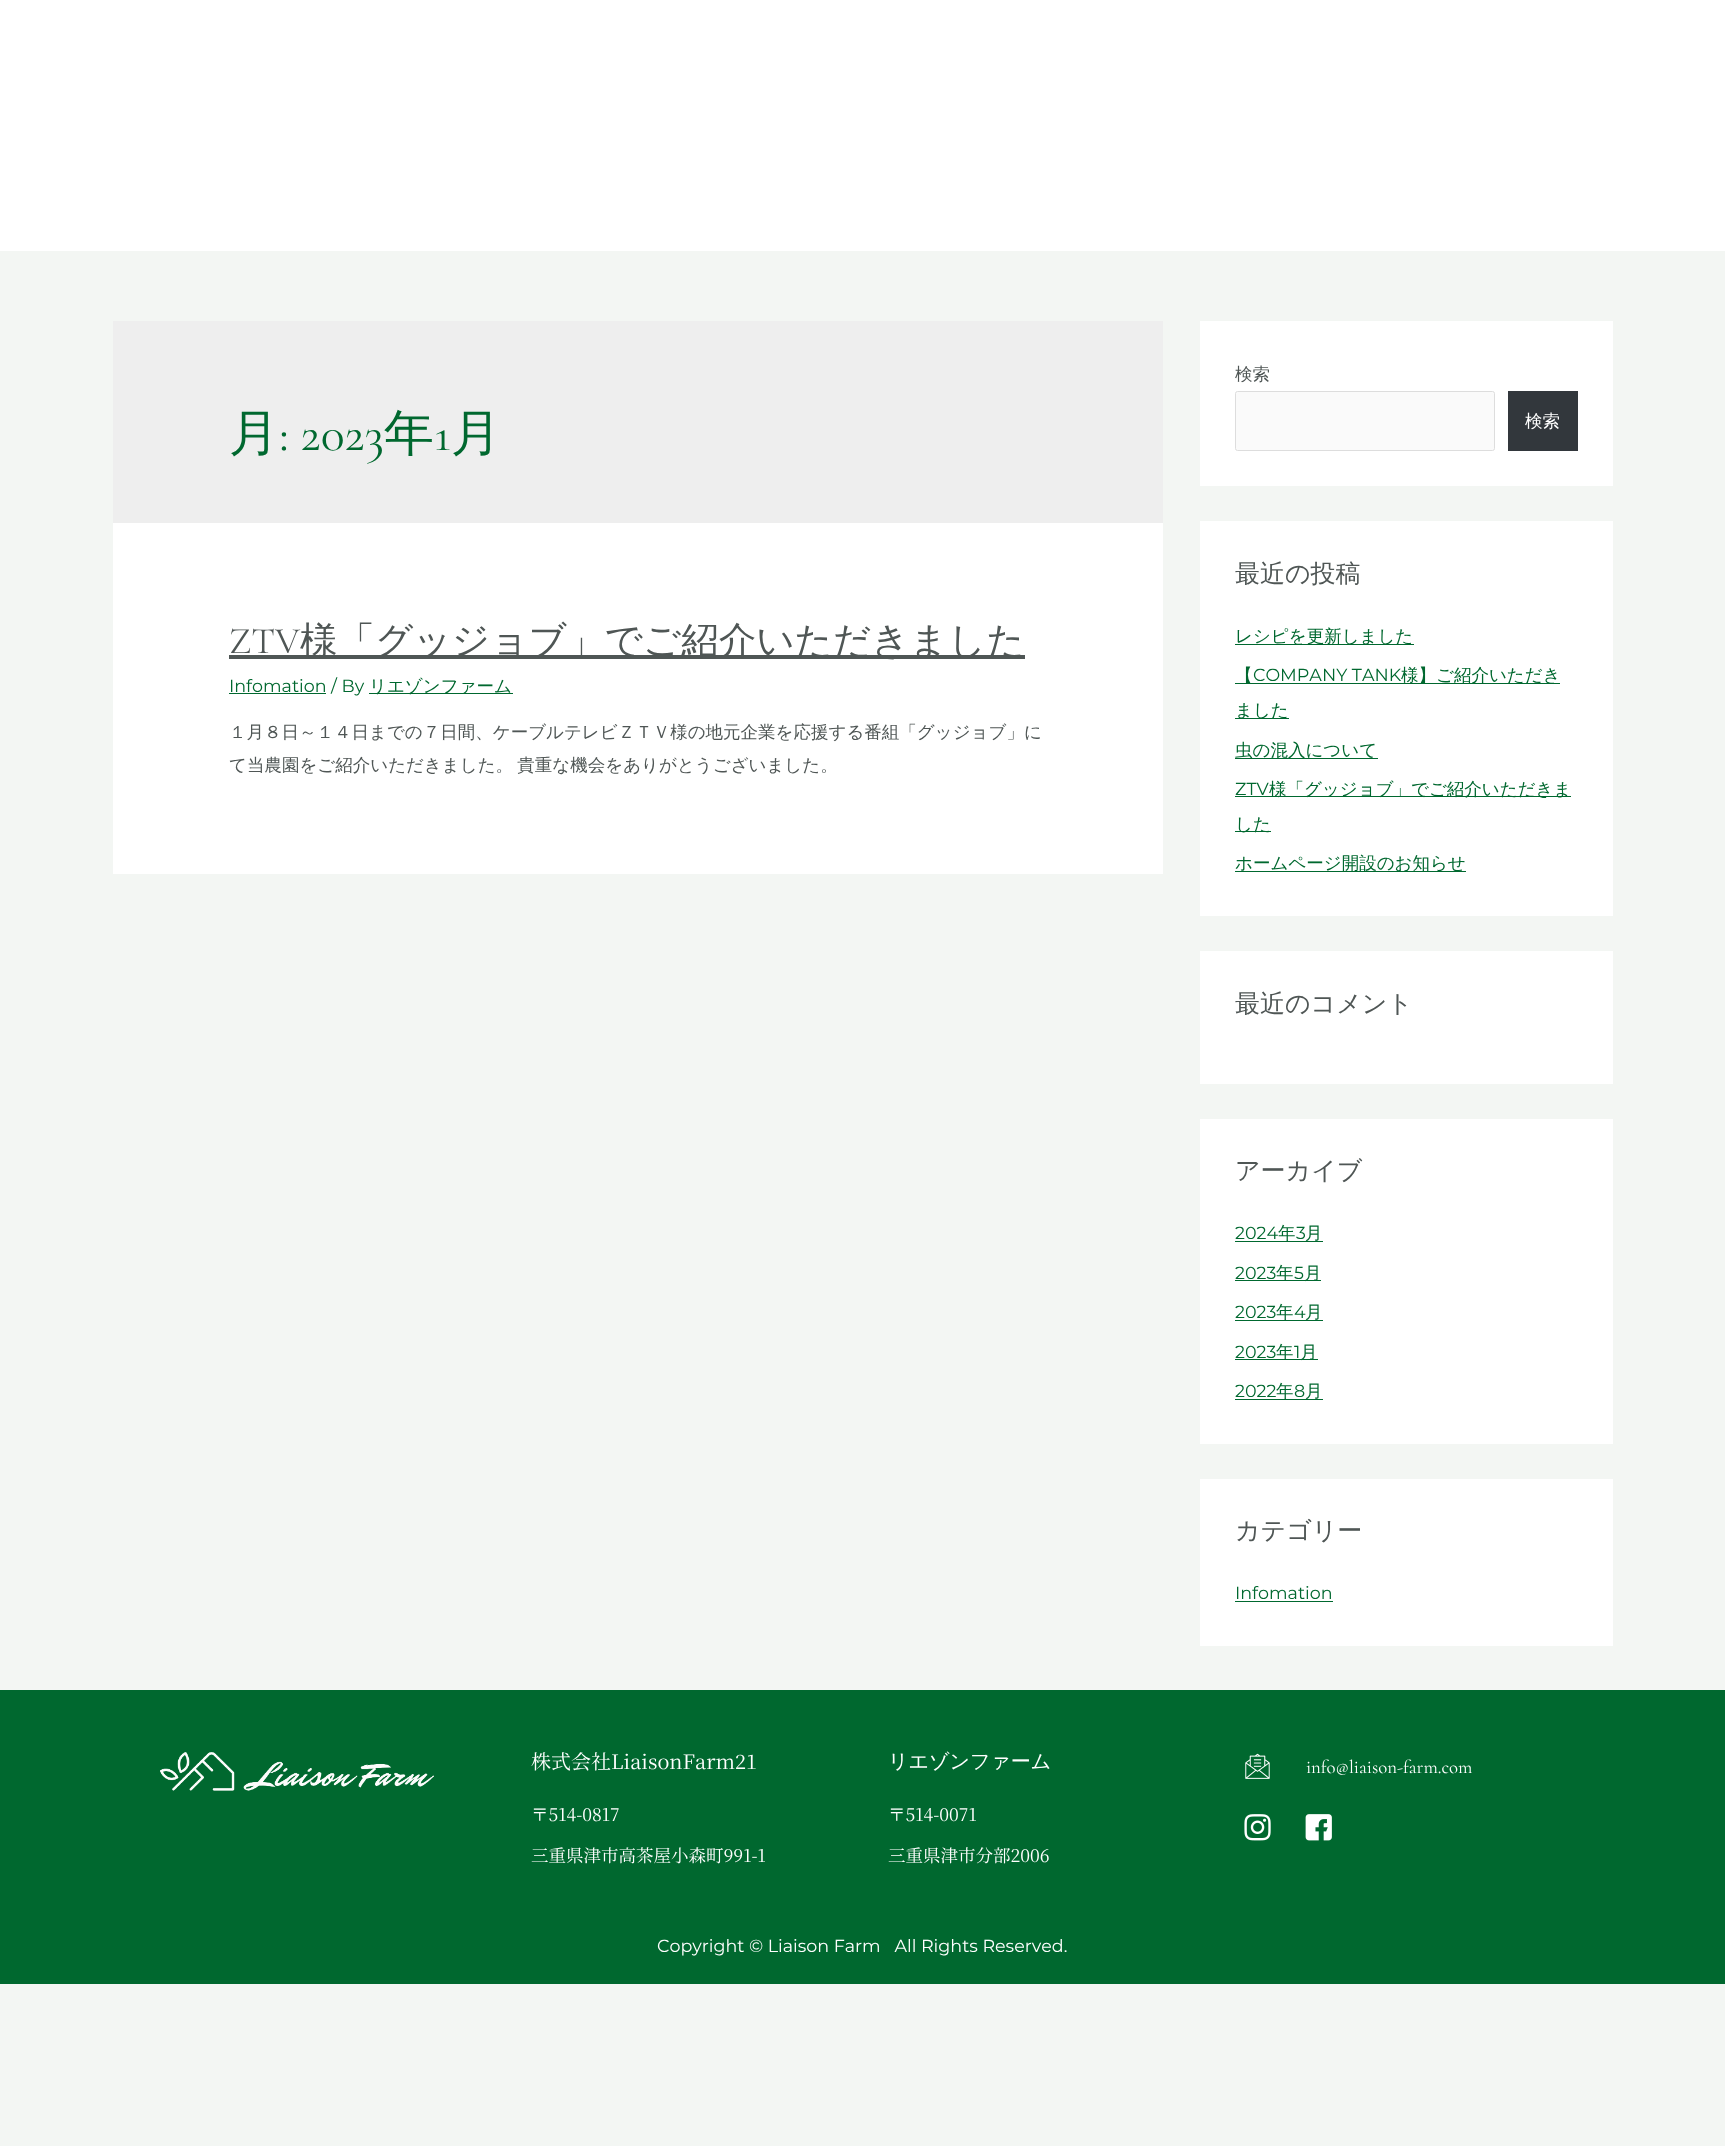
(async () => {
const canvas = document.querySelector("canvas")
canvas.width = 1725
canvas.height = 2146
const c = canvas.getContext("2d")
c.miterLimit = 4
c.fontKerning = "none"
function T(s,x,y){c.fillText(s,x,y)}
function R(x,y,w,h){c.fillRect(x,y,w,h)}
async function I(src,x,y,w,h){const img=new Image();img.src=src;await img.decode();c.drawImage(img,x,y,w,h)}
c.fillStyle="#f3f6f3"
R(0,0,1725,2146)
c.fillStyle="#fff"
R(0,0,1725,251)
c.fillStyle="#eee"
R(113,321,1050,202)
c.font="500 50px WenQuanYi Zen Hei"
c.fillStyle="#00682f"
T("月",229,450)
c.font="300 50px Cormorant"
T(": 2023",279,450)
c.font="500 50px WenQuanYi Zen Hei"
T("年",384,450)
c.font="300 50px Cormorant"
T("1",434,450)
c.font="500 50px WenQuanYi Zen Hei"
T("月",451,450)
c.fillStyle="#fff"
R(113,523,1050,351)
c.font="300 37.5px Cormorant"
c.fillStyle="#4f5655"
T("ZTV",229,653)
R(229,655,796,4)
c.font="500 37.5px WenQuanYi Zen Hei"
T("様「グッジョブ」でご紹介いただきました",300,653)
c.fillStyle="#00682f"
R(229,693,97,1)
c.font="100 17.5px Montserrat"
T("Infomation / By",229,692)
R(369,693,144,1)
c.font="500 17.5px WenQuanYi Zen Hei"
T("リエゾンファーム",369,692)
c.fillStyle="#4f5655"
T("１月８日～１４日までの７日間、ケーブルテレビＺＴＶ様の地元企業を応援する番組「グッジョブ」に",229,738)
c.wordSpacing="-1px"
T("て当農園をご紹介いただきました。 貴重な機会をありがとうございました。",229,771)
c.fillStyle="#fff"
R(1200,321,413,165)
c.wordSpacing="0px"
c.fillStyle="#4f5655"
T("検索",1235,380)
c.fillStyle="#fafafa"
c.beginPath()
c.roundRect(1235.5,391.5,259,59,2)
c.fill()
c.strokeStyle="#ddd"
c.stroke()
c.fillStyle="#32373c"
R(1508,391,70,60)
c.fillStyle="#fff"
T("検索",1525,427)
R(1200,521,413,395)
c.font="500 25px WenQuanYi Zen Hei"
c.fillStyle="#4f5655"
T("最近の投稿",1235,582)
c.fillStyle="#00682f"
R(1235,644,179,1)
c.font="500 17.5px WenQuanYi Zen Hei"
T("レシピを更新しました",1235,642)
T("【",1235,681)
c.font="100 17.5px Montserrat"
T("COMPANY TANK",1253,681)
R(1235,683,325,1)
c.font="500 17.5px WenQuanYi Zen Hei"
T("様】ご紹介いただき",1401,681)
R(1235,718,54,1)
T("ました",1235,716)
R(1235,758,143,1)
T("虫の混入について",1235,756)
c.font="100 17.5px Montserrat"
T("ZTV",1235,795)
R(1235,796,336,1)
c.font="500 17.5px WenQuanYi Zen Hei"
T("様「グッジョブ」でご紹介いただきま",1269,795)
R(1235,831,36,1)
T("した",1235,830)
R(1235,871,231,1)
T("ホームページ開設のお知らせ",1235,869)
c.fillStyle="#fff"
R(1200,951,413,133)
c.font="500 25px WenQuanYi Zen Hei"
c.fillStyle="#4f5655"
T("最近のコメント",1235,1012)
c.fillStyle="#fff"
R(1200,1119,413,325)
c.fillStyle="#4f5655"
T("アーカイブ",1235,1179)
c.font="100 17.5px Montserrat"
c.fillStyle="#00682f"
T("2024",1235,1239)
R(1235,1241,88,1)
c.font="500 17.5px WenQuanYi Zen Hei"
T("年",1278,1239)
c.font="100 17.5px Montserrat"
T("3",1296,1239)
c.font="500 17.5px WenQuanYi Zen Hei"
T("月",1305,1239)
c.font="100 17.5px Montserrat"
T("2023",1235,1279)
R(1235,1280,86,1)
c.font="500 17.5px WenQuanYi Zen Hei"
T("年",1276,1279)
c.font="100 17.5px Montserrat"
T("5",1294,1279)
c.font="500 17.5px WenQuanYi Zen Hei"
T("月",1304,1279)
c.font="100 17.5px Montserrat"
T("2023",1235,1318)
R(1235,1320,88,1)
c.font="500 17.5px WenQuanYi Zen Hei"
T("年",1276,1318)
c.font="100 17.5px Montserrat"
T("4",1294,1318)
c.font="500 17.5px WenQuanYi Zen Hei"
T("月",1305,1318)
c.font="100 17.5px Montserrat"
T("2023",1235,1358)
R(1235,1359,83,1)
c.font="500 17.5px WenQuanYi Zen Hei"
T("年",1276,1358)
c.font="100 17.5px Montserrat"
T("1",1294,1358)
c.font="500 17.5px WenQuanYi Zen Hei"
T("月",1300,1358)
c.font="100 17.5px Montserrat"
T("2022",1235,1397)
R(1235,1399,88,1)
c.font="500 17.5px WenQuanYi Zen Hei"
T("年",1276,1397)
c.font="100 17.5px Montserrat"
T("8",1294,1397)
c.font="500 17.5px WenQuanYi Zen Hei"
T("月",1305,1397)
c.fillStyle="#fff"
R(1200,1479,413,167)
c.font="500 25px WenQuanYi Zen Hei"
c.fillStyle="#4f5655"
T("カテゴリー",1235,1539)
c.font="100 17.5px Montserrat"
c.fillStyle="#00682f"
T("Infomation",1235,1599)
R(1235,1601,98,1)
R(0,1690,1725,294)
await I("1.png",160,1752,274,39)
c.font="20px Noto Serif JP"
c.fillStyle="#fff"
T("株式会社LiaisonFarm21",531,1769)
c.font="17.5px Noto Serif JP"
T("〒514-0817",531,1821)
T("三重県津市高茶屋小森町991-1",531,1862)
c.font="500 20px WenQuanYi Zen Hei"
T("リエゾンファーム",888,1768)
c.font="17.5px Noto Serif JP"
T("〒514-0071",888,1821)
T("三重県津市分部2006",888,1862)
await I("2.png",1245,1753,25,26)
c.font="300 18.75px Cormorant"
T("info@liaison-farm.com",1306,1773)
await I("3.png",1244,1814,27,27)
await I("4.png",1305,1814,27,27)
c.font="100 17.5px Montserrat"
T("Copyright © Liaison Farm   All Rights Reserved.",657,1952)
})()
